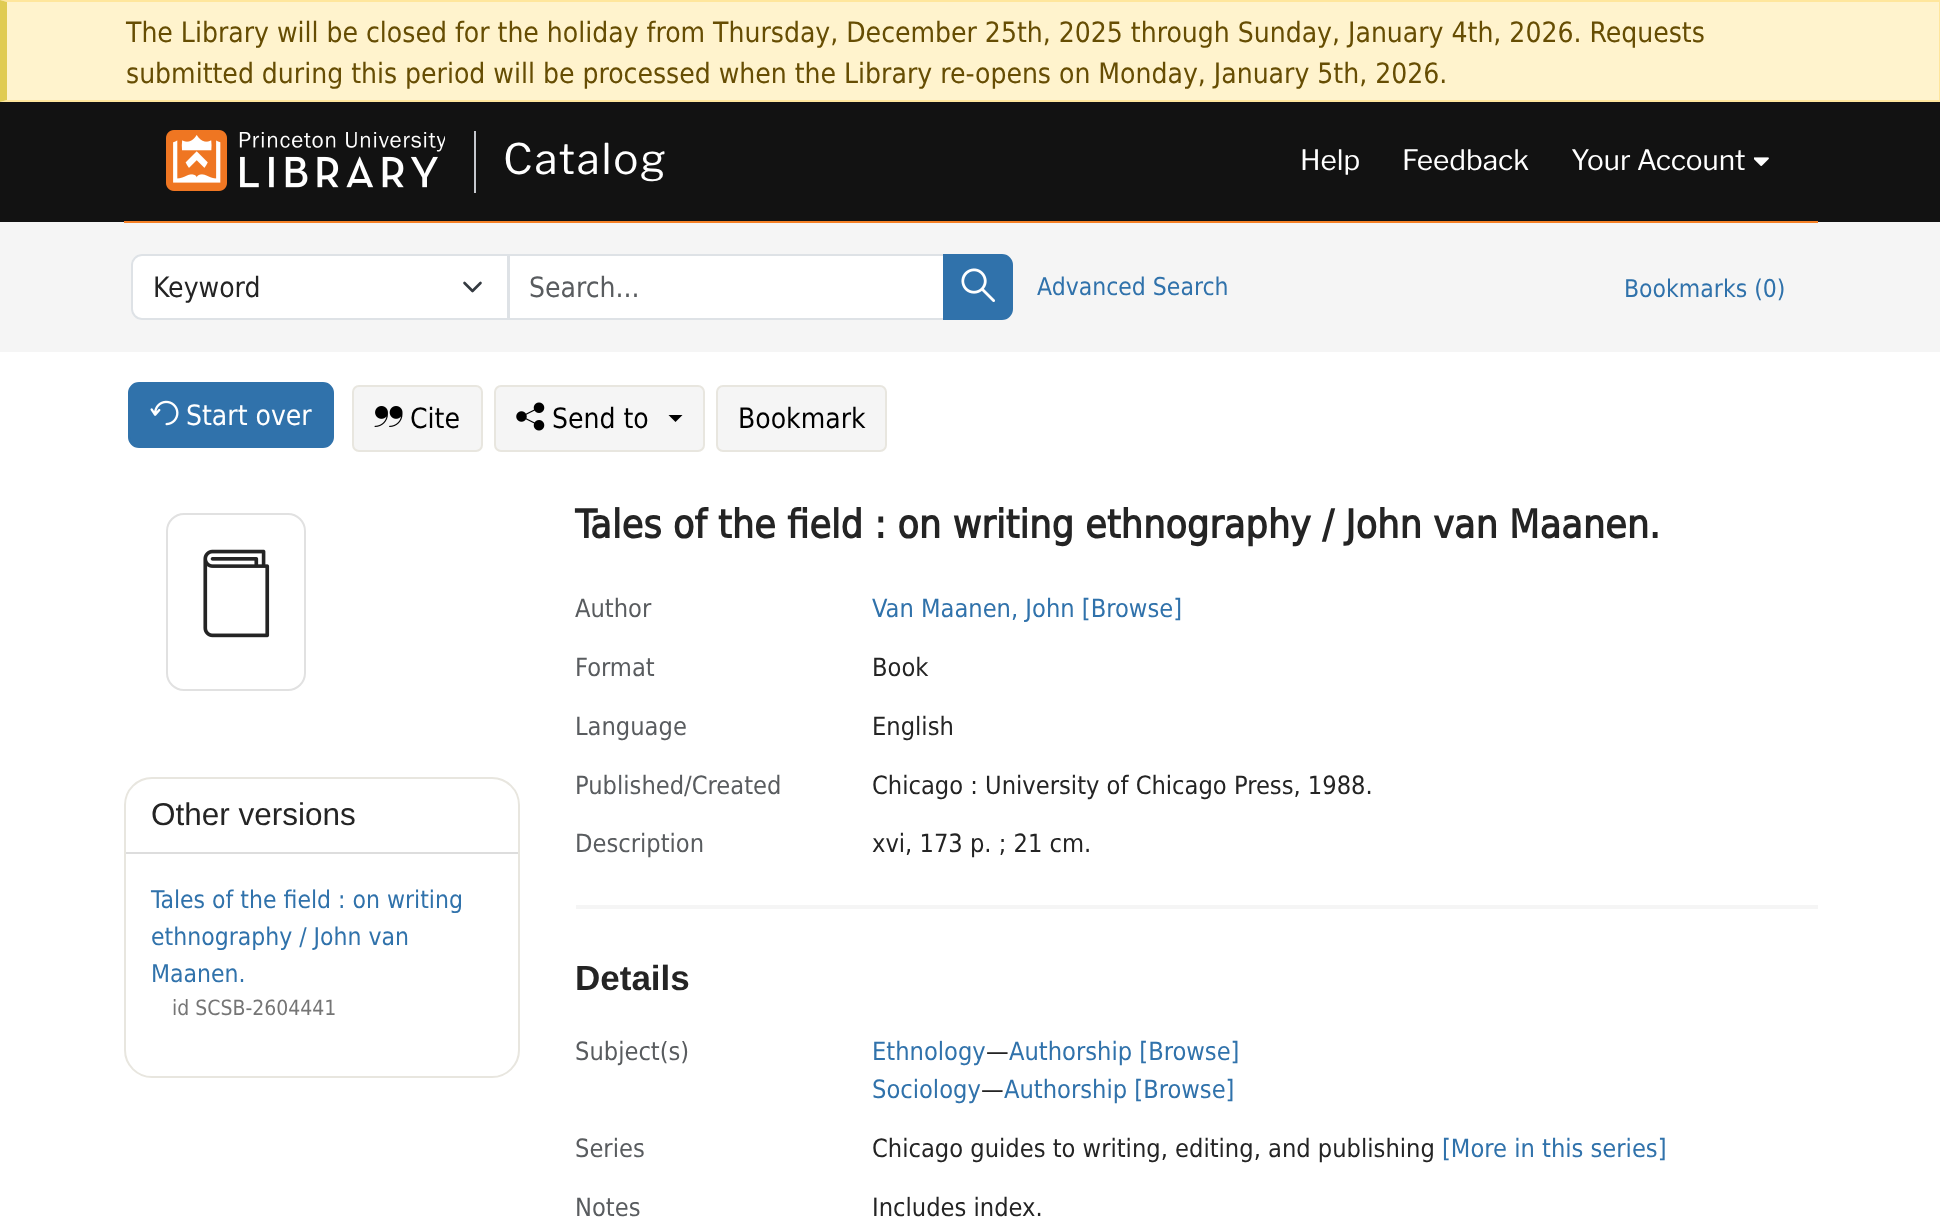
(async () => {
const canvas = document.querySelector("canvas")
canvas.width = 1940
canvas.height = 1222
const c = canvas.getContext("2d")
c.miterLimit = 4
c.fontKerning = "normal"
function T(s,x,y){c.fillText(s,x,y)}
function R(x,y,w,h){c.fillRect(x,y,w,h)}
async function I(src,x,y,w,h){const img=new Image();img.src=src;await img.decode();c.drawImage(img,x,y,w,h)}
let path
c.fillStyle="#f5f5f5"
R(0,0,1940,1222)
c.fillStyle="#fff3cd"
R(7,2,1932,98)
c.fillStyle="#ffe69c"
path = new Path2D("M0 0h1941l-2 2h-1932z")
c.fill(path)
R(1939,0,1,102)
path = new Path2D("M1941 102h-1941l7-2h1932z")
c.fill(path)
c.fillStyle="#e0cb52"
path = new Path2D("M0 102v-102l7 2v98z")
c.fill(path)
c.font="28px DejaVu Sans"
c.fillStyle="#664d03"
T("The Library will be closed for the holiday from Thursday, December 25th, 2025 through Sunday, January 4th, 2026. Requests",126,42)
T("submitted during this period will be processed when the Library re-opens on Monday, January 5th, 2026.",126,83)
c.fillStyle="#121212"
R(0,102,1940,120)
c.fillStyle="#f58025"
R(124,221,1694,2)
await I("1.png",166,130,279,61)
c.fillStyle="#c5c8ce"
R(474,131,2,62)
c.letterSpacing="1.75px"
c.font="42px Libre Franklin"
c.fillStyle="#fff"
T("Catalog",503,174)
c.letterSpacing="0px"
c.font="28px Libre Franklin"
T("Help",1300,170)
T("Feedback",1402,170)
await I("2.png",1754,157,15,9)
T("Your Account",1571,170)
c.beginPath()
c.rect(509,255,435,64)
c.fill()
c.strokeStyle="#dee2e6"
c.lineWidth=2
c.stroke()
c.beginPath()
c.roundRect(131,254,378,66,[11,0,0,11])
c.fill()
path = new Path2D("M464.5 283l8 8l8-8")
c.strokeStyle="#343a40"
c.lineWidth=2.6
c.lineCap="round"
c.lineJoin="round"
c.stroke(path)
c.beginPath()
c.roundRect(132,255,376,64,[10,0,0,10])
c.strokeStyle="#dee2e6"
c.lineWidth=2
c.lineJoin="miter"
c.stroke()
c.font="28px DejaVu Sans"
c.fillStyle="#242424"
T("Keyword",153,297)
c.fillStyle="#595c5f"
T("Search...",529,297)
c.fillStyle="#3072ab"
c.beginPath()
c.roundRect(944,255,68,64,[0,10,10,0])
c.fill()
c.strokeStyle="#3072ab"
c.stroke()
await I("3.png",961,268,34,34)
c.font="24.5px DejaVu Sans"
T("Advanced Search",1037,295)
T("Bookmarks (0)",1624,297)
c.fillStyle="#fff"
R(0,352,1940,870)
c.fillStyle="#3072ab"
c.beginPath()
c.roundRect(129,383,204,64,10)
c.fill()
c.stroke()
await I("4.png",150,400,29,26)
c.font="28px DejaVu Sans"
c.fillStyle="#fff"
T("Start over",186,425)
c.fillStyle="#f5f5f5"
c.beginPath()
c.roundRect(353,386,129,65,6)
c.fill()
c.strokeStyle="#e8e6df"
c.stroke()
await I("5.png",374,406,29,21)
c.fillStyle="#000"
T("Cite",410,428)
c.fillStyle="#f5f5f5"
c.beginPath()
c.roundRect(495,386,209,65,6)
c.fill()
c.stroke()
await I("6.png",516,402,29,29)
c.fillStyle="#000"
T("Send to",552,428)
path = new Path2D("M668.5 415h14l-7 7z")
c.fill(path)
c.fillStyle="#f5f5f5"
c.beginPath()
c.roundRect(717,386,169,65,6)
c.fill()
c.stroke()
c.fillStyle="#000"
T("Bookmark",738,428)
c.beginPath()
c.roundRect(167,514,138,176,17)
c.strokeStyle="#e1e1e1"
c.stroke()
await I("7.png",203,549,67,89)
c.font="bold 39.2px DejaVu Sans"
c.fillStyle="#242424"
T("Tales of the field : on writing ethnography / John van Maanen.",575,538)
c.fillStyle="#f5f5f5"
R(576,905,1242,4)
c.font="25.2px DejaVu Sans"
c.fillStyle="#595c5f"
T("Author",575,617)
c.fillStyle="#3072ab"
T("Van Maanen, John [Browse]",872,617)
c.fillStyle="#595c5f"
T("Format",575,676)
c.fillStyle="#242424"
T("Book",872,676)
c.fillStyle="#595c5f"
T("Language",575,735)
c.fillStyle="#242424"
T("English",872,735)
c.fillStyle="#595c5f"
T("Published/Created",575,794)
c.fillStyle="#242424"
T("Chicago : University of Chicago Press, 1988.",872,794)
c.fillStyle="#595c5f"
T("Description",575,852)
c.fillStyle="#242424"
T("xvi, 173 p. ; 21 cm.",872,852)
c.font="bold 35px Liberation Sans"
T("Details",575,990)
c.font="25.2px DejaVu Sans"
c.fillStyle="#595c5f"
T("Subject(s)",575,1060)
c.fillStyle="#3072ab"
T("Ethnology",872,1060)
c.fillStyle="#242424"
T("—",986,1060)
c.fillStyle="#3072ab"
T("Authorship [Browse]",1009,1060)
T("Sociology",872,1098)
c.fillStyle="#242424"
T("—",981,1098)
c.fillStyle="#3072ab"
T("Authorship [Browse]",1004,1098)
c.fillStyle="#595c5f"
T("Series",575,1157)
c.fillStyle="#242424"
T("Chicago guides to writing, editing, and publishing",872,1157)
c.fillStyle="#3072ab"
T("[More in this series]",1442,1157)
c.fillStyle="#595c5f"
T("Notes",575,1216)
c.fillStyle="#242424"
T("Includes index.",872,1216)
c.beginPath()
c.roundRect(125,778,394,299,27)
c.strokeStyle="#e8e6df"
c.stroke()
c.fillStyle="#ddd"
R(126,852,392,2)
c.font="31.5px Liberation Sans"
c.fillStyle="#242424"
T("Other versions",151,825)
c.font="24.5px DejaVu Sans"
c.fillStyle="#3072ab"
T("Tales of the field : on writing",151,908)
T("ethnography / John van",151,945)
T("Maanen.",151,982)
c.font="21px DejaVu Sans"
c.fillStyle="#757575"
T("id SCSB-2604441",172,1015)
})()
